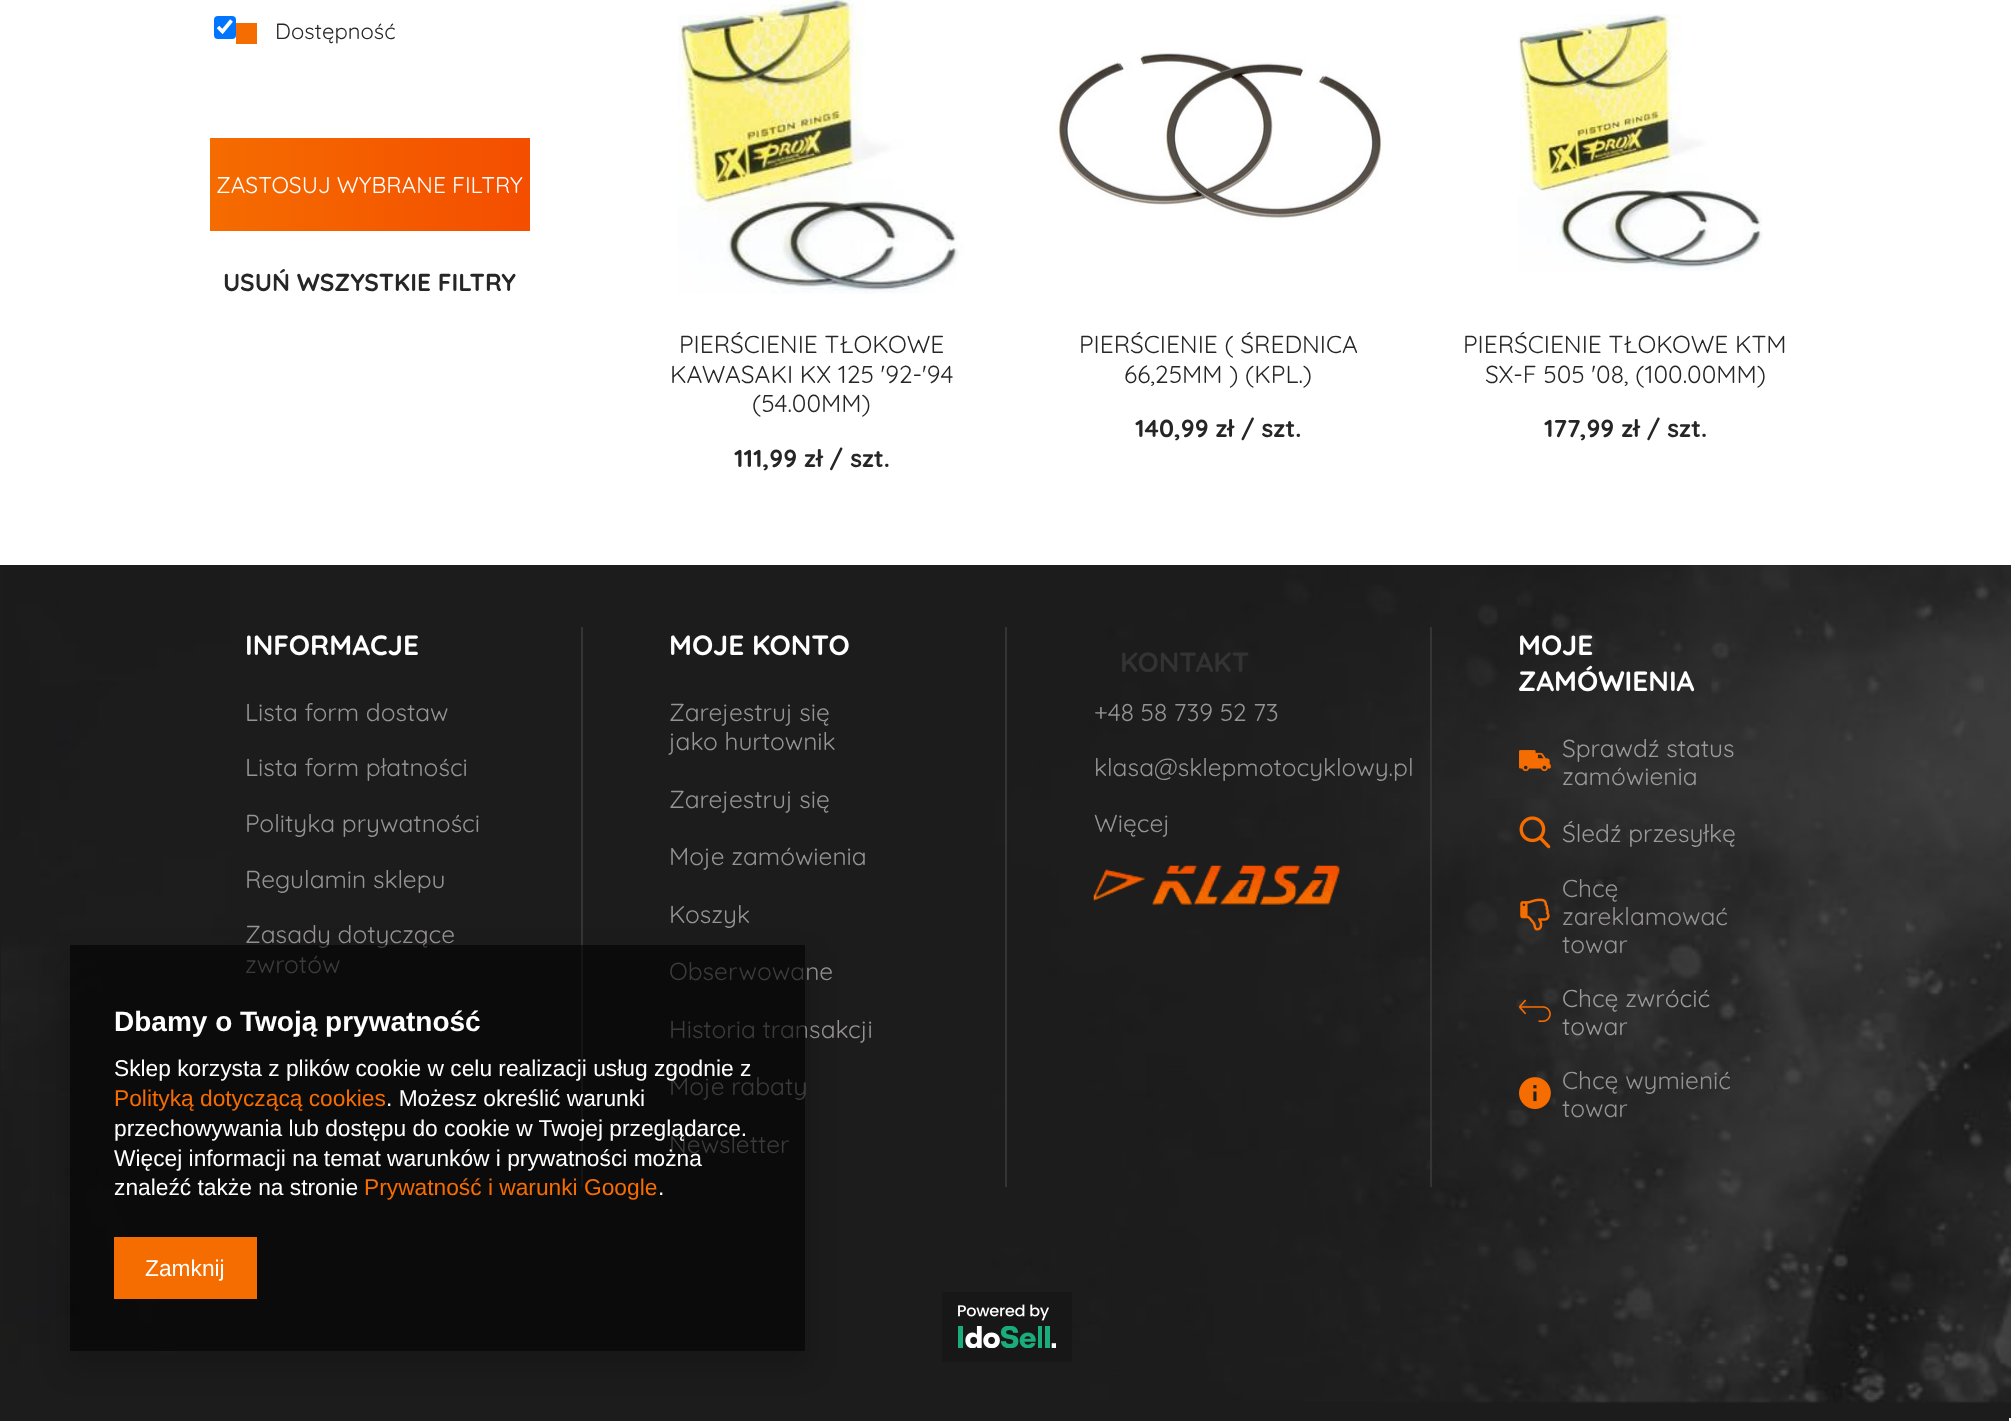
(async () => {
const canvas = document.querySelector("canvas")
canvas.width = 2011
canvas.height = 1421
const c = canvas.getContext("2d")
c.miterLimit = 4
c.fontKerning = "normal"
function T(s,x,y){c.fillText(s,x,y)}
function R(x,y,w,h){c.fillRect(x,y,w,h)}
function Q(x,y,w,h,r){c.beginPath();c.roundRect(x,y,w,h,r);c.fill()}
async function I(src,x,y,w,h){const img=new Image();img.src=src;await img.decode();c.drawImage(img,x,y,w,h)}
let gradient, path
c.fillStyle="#fff"
R(0,0,2011,1421)
c.fillStyle="#0075ff"
Q(214,16,22,23,4)
path = new Path2D("M218 27l4.5 4.5l9-11")
c.strokeStyle="#fff"
c.lineWidth=3.6
c.stroke(path)
c.fillStyle="#f56c00"
R(236,23,21,21)
c.font="22px Quicksand"
c.fillStyle="#272626"
T("Dostępność",275,39)
gradient = c.createLinearGradient(210,185,851,185)
gradient.addColorStop(0,"#f56c00")
gradient.addColorStop(.48,"#f44f00")
gradient.addColorStop(.64,"#f44f00")
gradient.addColorStop(1,"#f56c00")
c.fillStyle = gradient
R(210,138,320,93)
c.font="22.75px Quicksand"
c.fillStyle="#fff"
T("ZASTOSUJ WYBRANE FILTRY",216,193)
c.font="bold 24.5px Quicksand"
c.fillStyle="#272626"
T("USUŃ WSZYSTKIE FILTRY",223,291)
await I("1.png",678,0,285,294)
c.font="24.5px Quicksand"
T("PIERŚCIENIE TŁOKOWE",679,353)
T("KAWASAKI KX 125 '92-'94",670,383)
T("(54.00MM)",752,412)
c.font="bold 24.5px Quicksand"
T("111,99 zł / szt.",734,467)
await I("2.png",1055,53,329,168)
c.font="24.5px Quicksand"
T("PIERŚCIENIE ( ŚREDNICA",1079,353)
T("66,25MM ) (KPL.)",1124,383)
c.font="bold 24.5px Quicksand"
T("140,99 zł / szt.",1135,437)
await I("3.png",1518,14,245,257)
c.font="24.5px Quicksand"
T("PIERŚCIENIE TŁOKOWE KTM",1463,353)
T("SX-F 505 '08, (100.00MM)",1485,383)
c.font="bold 24.5px Quicksand"
T("177,99 zł / szt.",1544,437)
c.fillStyle="#1c1c1c"
R(0,565,2011,856)
await I("4.png",1,565,2010,838)
c.fillStyle="#353535"
R(581,627,2,560)
c.font="bold 28px Quicksand"
c.fillStyle="#fff"
T("INFORMACJE",245,655)
c.font="24.5px Quicksand"
c.fillStyle="#969393"
T("Lista form dostaw",245,721)
T("Lista form płatności",245,776)
T("Polityka prywatności",245,832)
T("Regulamin sklepu",245,888)
T("Zasady dotyczące",245,943)
T("zwrotów",245,973)
c.fillStyle="#353535"
R(1005,627,2,560)
c.font="bold 28px Quicksand"
c.fillStyle="#fff"
T("MOJE KONTO",669,655)
c.font="24.5px Quicksand"
c.fillStyle="#969393"
T("Zarejestruj się",669,721)
T("jako hurtownik",669,750)
T("Zarejestruj się",669,808)
T("Moje zamówienia",669,865)
T("Koszyk",669,923)
T("Obserwowane",669,980)
T("Historia transakcji",669,1038)
T("Moje rabaty",669,1095)
T("Newsletter",669,1153)
c.fillStyle="#353535"
R(1430,627,2,560)
c.font="bold 28px Quicksand"
c.fillStyle="#333"
T("KONTAKT",1120,672)
c.font="24.5px Quicksand"
c.fillStyle="#969393"
T("+48 58 739 52 73",1094,721)
T("klasa@sklepmotocyklowy.pl",1094,776)
T("Więcej",1094,832)
await I("5.png",1093,864,247,41)
c.font="bold 28px Quicksand"
c.fillStyle="#fff"
T("MOJE",1518,655)
T("ZAMÓWIENIA",1518,691)
await I("6.png",1519,750,32,22)
c.font="24.5px Quicksand"
c.fillStyle="#9c9999"
T("Sprawdź status",1562,757)
T("zamówienia",1562,785)
await I("7.png",1519,816,32,33)
T("Śledź przesyłkę",1562,842)
await I("8.png",1520,898,30,33)
c.fillStyle="#969393"
T("Chcę",1562,897)
T("zareklamować",1562,925)
T("towar",1562,953)
await I("9.png",1519,999,32,23)
c.fillStyle="#9c9999"
T("Chcę zwrócić",1562,1007)
T("towar",1562,1035)
await I("10.png",1519,1077,32,32)
c.fillStyle="#969393"
T("Chcę wymienić",1562,1089)
T("towar",1562,1117)
await I("11.png",942,1292,130,70)
c.save()
path = new Path2D("M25 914h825v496h-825zm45 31h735v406h-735z")
c.clip(path,"evenodd")
c.fillStyle="#00000026"
c.filter="blur(13px)"
c.beginPath()
c.rect(65,954,745,416)
c.fill()
c.filter="none"
c.restore()
c.fillStyle="#00000099"
R(70,945,735,406)
c.font="bold 28px Liberation Sans"
c.fillStyle="#fff"
T("Dbamy o Twoją prywatność",114,1031)
c.font="22.75px Liberation Sans"
T("Sklep korzysta z plików cookie w celu realizacji usług zgodnie z",114,1076)
c.fillStyle="#f56c00"
T("Polityką dotyczącą cookies",114,1106)
c.fillStyle="#fff"
T(". Możesz określić warunki",386,1106)
T("przechowywania lub dostępu do cookie w Twojej przeglądarce.",114,1136)
T("Więcej informacji na temat warunków i prywatności można",114,1166)
T("znaleźć także na stronie",114,1195)
c.fillStyle="#f56c00"
T("Prywatność i warunki Google",364,1195)
c.fillStyle="#fff"
T(".",658,1195)
c.fillStyle="#f56c00"
R(114,1237,143,62)
c.fillStyle="#fff"
T("Zamknij",145,1276)
c.fillStyle="#f5f5f5"
R(2009,1418,2,3)
})()
